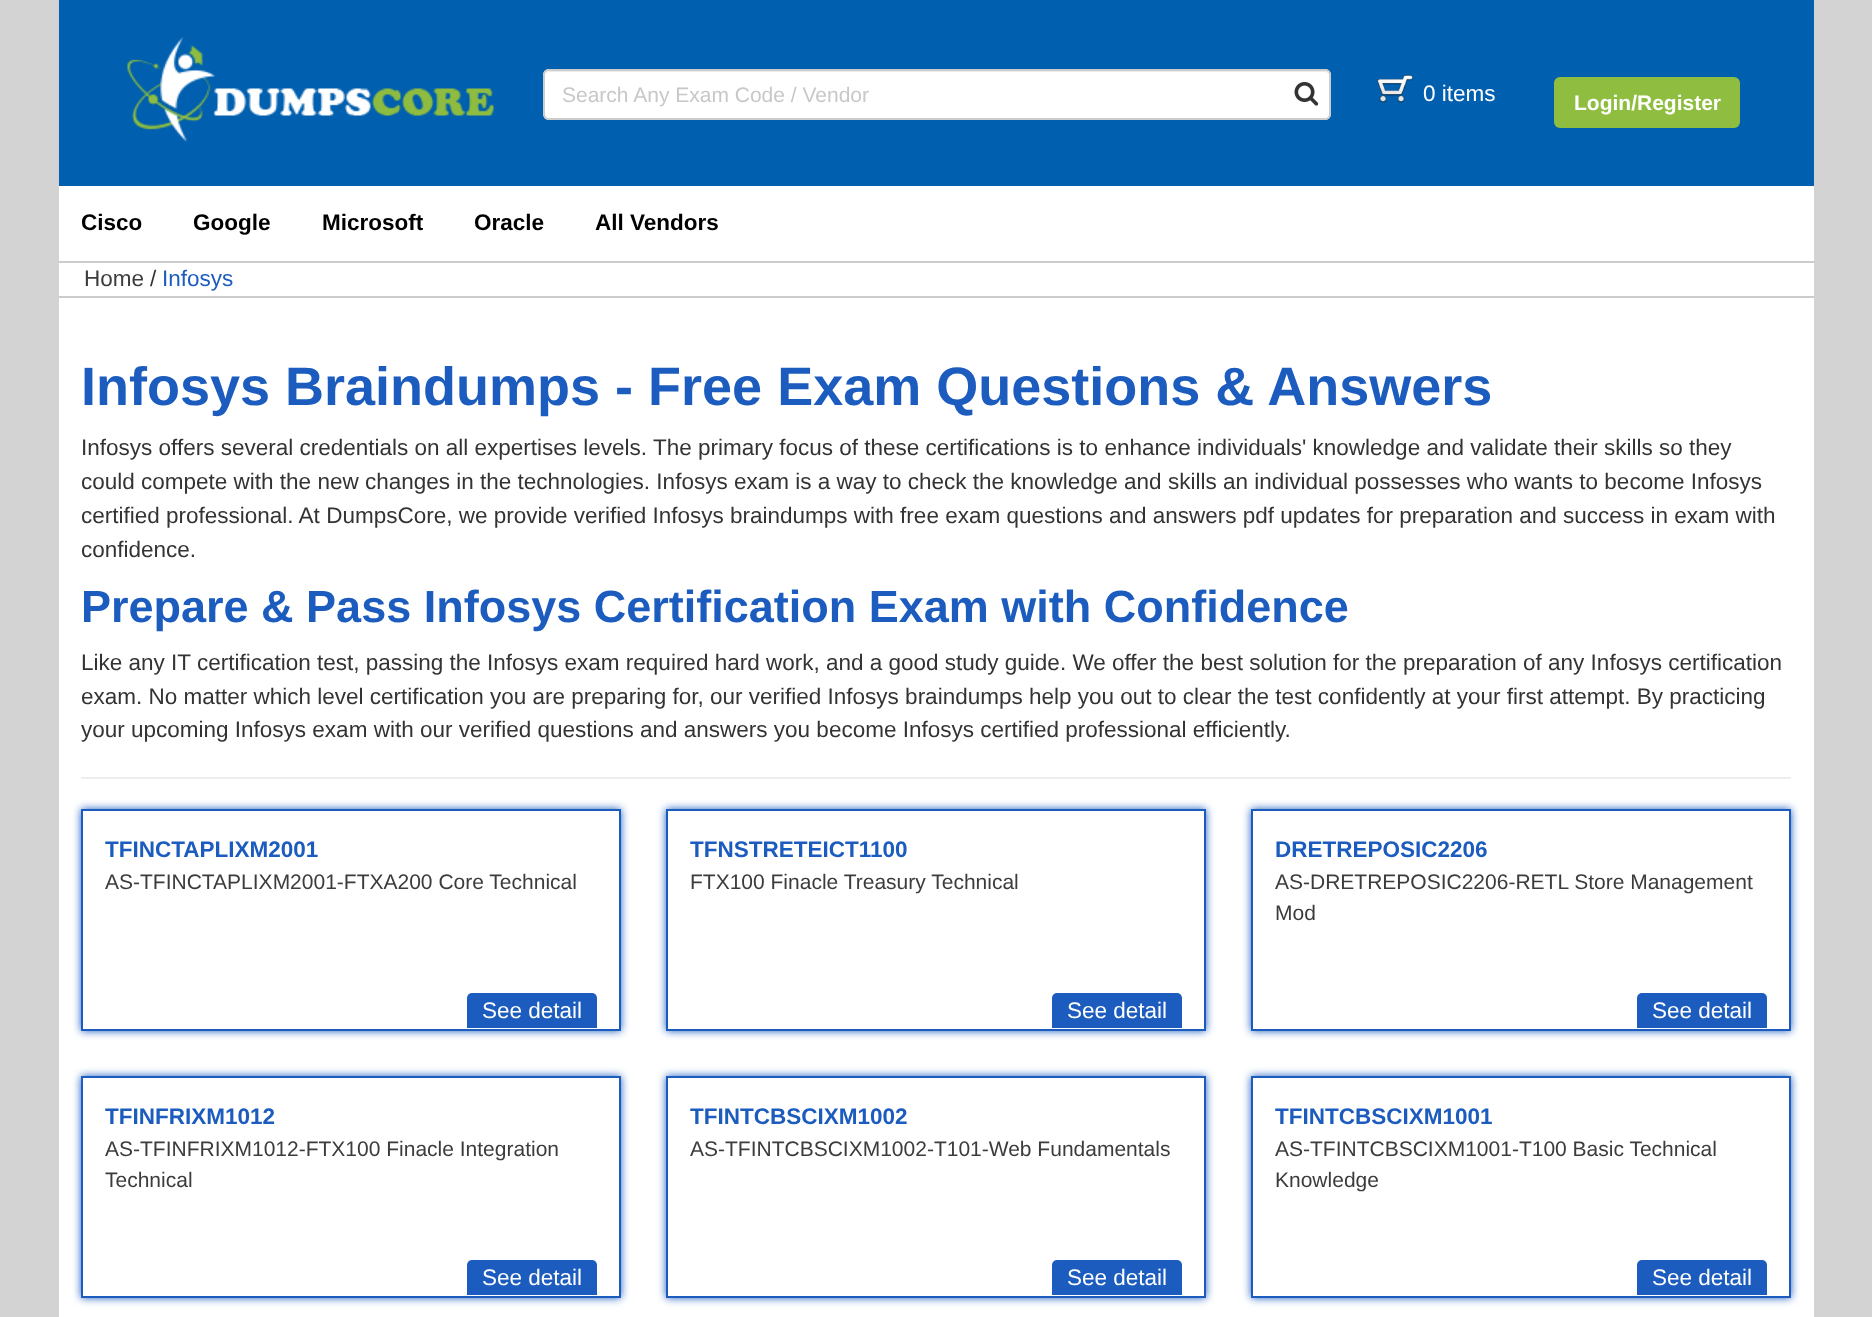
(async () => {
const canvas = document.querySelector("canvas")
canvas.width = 1872
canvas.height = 1317
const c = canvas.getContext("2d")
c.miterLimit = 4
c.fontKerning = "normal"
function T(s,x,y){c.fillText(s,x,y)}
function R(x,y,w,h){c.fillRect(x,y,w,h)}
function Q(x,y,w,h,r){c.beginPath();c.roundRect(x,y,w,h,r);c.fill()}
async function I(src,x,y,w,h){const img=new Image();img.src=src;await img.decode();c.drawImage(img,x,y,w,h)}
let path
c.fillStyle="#d3d3d3"
R(0,0,1872,1317)
c.fillStyle="#fff"
R(59,263,1755,1054)
c.fillStyle="#005fae"
R(59,0,1755,186)
await I("1.png",127,37,367,105)
c.fillStyle="#fff"
Q(543,69,788,51,6)
c.fillStyle="#ececec"
path = new Path2D("M549 72h775c3 0 5 2 5 4c0-3-2-5-5-5h-774c-2 0-3 1-4 2z")
c.fill(path)
c.beginPath()
c.roundRect(544,70,786,49,5)
c.strokeStyle="#ccc"
c.lineWidth=2
c.stroke()
c.font="21px Liberation Sans"
c.fillStyle="#c8c8c8"
T("Search Any Exam Code / Vendor",562,102)
await I("2.png",1294,82,25,24)
await I("3.png",1377,75,36,28)
c.font="22.5px Liberation Sans"
c.fillStyle="#fff"
T("0 items",1423,101)
c.fillStyle="#8ebd40"
Q(1554,77,186,51,6)
c.font="bold 21px Liberation Sans"
c.fillStyle="#fff"
T("Login/Register",1574,110)
R(59,186,1755,75)
c.fillStyle="#ccc"
R(59,261,1755,2)
c.font="bold 22.5px Liberation Sans"
c.fillStyle="#000"
T("Cisco",81,230)
T("Google",193,230)
T("Microsoft",322,230)
T("Oracle",474,230)
T("All Vendors",595,230)
c.fillStyle="#ccc"
R(59,296,1755,2)
c.font="22.5px Liberation Sans"
c.fillStyle="#3c3c3c"
T("Home",84,286)
c.fillStyle="#333"
T("/",150,286)
c.fillStyle="#1b5cbe"
T("Infosys",162,286)
c.font="bold 54px Liberation Sans"
T("Infosys Braindumps - Free Exam Questions & Answers",81,405)
c.font="22.5px Liberation Sans"
c.fillStyle="#333"
T("Infosys offers several credentials on all expertises levels. The primary focus of these certifications is to enhance individuals' knowledge and validate their skills so they",81,455)
T("could compete with the new changes in the technologies. Infosys exam is a way to check the knowledge and skills an individual possesses who wants to become Infosys",81,489)
T("certified professional. At DumpsCore, we provide verified Infosys braindumps with free exam questions and answers pdf updates for preparation and success in exam with",81,523)
T("confidence.",81,557)
c.font="bold 45px Liberation Sans"
c.fillStyle="#1b5cbe"
T("Prepare & Pass Infosys Certification Exam with Confidence",81,622)
c.font="22.5px Liberation Sans"
c.fillStyle="#333"
T("Like any IT certification test, passing the Infosys exam required hard work, and a good study guide. We offer the best solution for the preparation of any Infosys certification",81,670)
T("exam. No matter which level certification you are preparing for, our verified Infosys braindumps help you out to clear the test confidently at your first attempt. By practicing",81,704)
T("your upcoming Infosys exam with our verified questions and answers you become Infosys certified professional efficiently.",81,737)
c.fillStyle="#eee"
R(81,777,1710,2)
c.save()
path = new Path2D("M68 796h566v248h-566zm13 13h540v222h-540z")
c.clip(path,"evenodd")
c.fillStyle="#1b5cbe"
c.filter="blur(4px)"
c.beginPath()
c.rect(81,809,540,222)
c.fill()
c.filter="none"
c.restore()
c.strokeStyle="#1b5cbe"
c.strokeRect(82,810,538,220)
c.font="bold 22.5px Liberation Sans"
c.fillStyle="#1b5cbe"
T("TFINCTAPLIXM2001",105,857)
c.font="21px Liberation Sans"
c.fillStyle="#3c3c3c"
T("AS-TFINCTAPLIXM2001-FTXA200 Core Technical",105,889)
c.fillStyle="#1b5cbe"
c.beginPath()
c.roundRect(467,993,130,35,[5,5,0,0])
c.fill()
c.font="22.5px Liberation Sans"
c.fillStyle="#fff"
T("See detail",482,1018)
c.save()
path = new Path2D("M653 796h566v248h-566zm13 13h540v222h-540z")
c.clip(path,"evenodd")
c.fillStyle="#1b5cbe"
c.filter="blur(4px)"
c.beginPath()
c.rect(666,809,540,222)
c.fill()
c.filter="none"
c.restore()
c.strokeRect(667,810,538,220)
c.font="bold 22.5px Liberation Sans"
c.fillStyle="#1b5cbe"
T("TFNSTRETEICT1100",690,857)
c.font="21px Liberation Sans"
c.fillStyle="#3c3c3c"
T("FTX100 Finacle Treasury Technical",690,889)
c.fillStyle="#1b5cbe"
c.beginPath()
c.roundRect(1052,993,130,35,[5,5,0,0])
c.fill()
c.font="22.5px Liberation Sans"
c.fillStyle="#fff"
T("See detail",1067,1018)
c.save()
path = new Path2D("M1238 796h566v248h-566zm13 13h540v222h-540z")
c.clip(path,"evenodd")
c.fillStyle="#1b5cbe"
c.filter="blur(4px)"
c.beginPath()
c.rect(1251,809,540,222)
c.fill()
c.filter="none"
c.restore()
c.strokeRect(1252,810,538,220)
c.font="bold 22.5px Liberation Sans"
c.fillStyle="#1b5cbe"
T("DRETREPOSIC2206",1275,857)
c.font="21px Liberation Sans"
c.fillStyle="#3c3c3c"
T("AS-DRETREPOSIC2206-RETL Store Management",1275,889)
T("Mod",1275,920)
c.fillStyle="#1b5cbe"
c.beginPath()
c.roundRect(1637,993,130,35,[5,5,0,0])
c.fill()
c.font="22.5px Liberation Sans"
c.fillStyle="#fff"
T("See detail",1652,1018)
c.save()
path = new Path2D("M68 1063h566v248h-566zm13 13h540v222h-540z")
c.clip(path,"evenodd")
c.fillStyle="#1b5cbe"
c.filter="blur(4px)"
c.beginPath()
c.rect(81,1076,540,222)
c.fill()
c.filter="none"
c.restore()
c.strokeRect(82,1077,538,220)
c.font="bold 22.5px Liberation Sans"
c.fillStyle="#1b5cbe"
T("TFINFRIXM1012",105,1124)
c.font="21px Liberation Sans"
c.fillStyle="#3c3c3c"
T("AS-TFINFRIXM1012-FTX100 Finacle Integration",105,1156)
T("Technical",105,1187)
c.fillStyle="#1b5cbe"
c.beginPath()
c.roundRect(467,1260,130,35,[5,5,0,0])
c.fill()
c.font="22.5px Liberation Sans"
c.fillStyle="#fff"
T("See detail",482,1285)
c.save()
path = new Path2D("M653 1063h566v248h-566zm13 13h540v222h-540z")
c.clip(path,"evenodd")
c.fillStyle="#1b5cbe"
c.filter="blur(4px)"
c.beginPath()
c.rect(666,1076,540,222)
c.fill()
c.filter="none"
c.restore()
c.strokeRect(667,1077,538,220)
c.font="bold 22.5px Liberation Sans"
c.fillStyle="#1b5cbe"
T("TFINTCBSCIXM1002",690,1124)
c.font="21px Liberation Sans"
c.fillStyle="#3c3c3c"
T("AS-TFINTCBSCIXM1002-T101-Web Fundamentals",690,1156)
c.fillStyle="#1b5cbe"
c.beginPath()
c.roundRect(1052,1260,130,35,[5,5,0,0])
c.fill()
c.font="22.5px Liberation Sans"
c.fillStyle="#fff"
T("See detail",1067,1285)
c.save()
path = new Path2D("M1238 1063h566v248h-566zm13 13h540v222h-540z")
c.clip(path,"evenodd")
c.fillStyle="#1b5cbe"
c.filter="blur(4px)"
c.beginPath()
c.rect(1251,1076,540,222)
c.fill()
c.filter="none"
c.restore()
c.strokeRect(1252,1077,538,220)
c.font="bold 22.5px Liberation Sans"
c.fillStyle="#1b5cbe"
T("TFINTCBSCIXM1001",1275,1124)
c.font="21px Liberation Sans"
c.fillStyle="#3c3c3c"
T("AS-TFINTCBSCIXM1001-T100 Basic Technical",1275,1156)
T("Knowledge",1275,1187)
c.fillStyle="#1b5cbe"
c.beginPath()
c.roundRect(1637,1260,130,35,[5,5,0,0])
c.fill()
c.font="22.5px Liberation Sans"
c.fillStyle="#fff"
T("See detail",1652,1285)
})()
